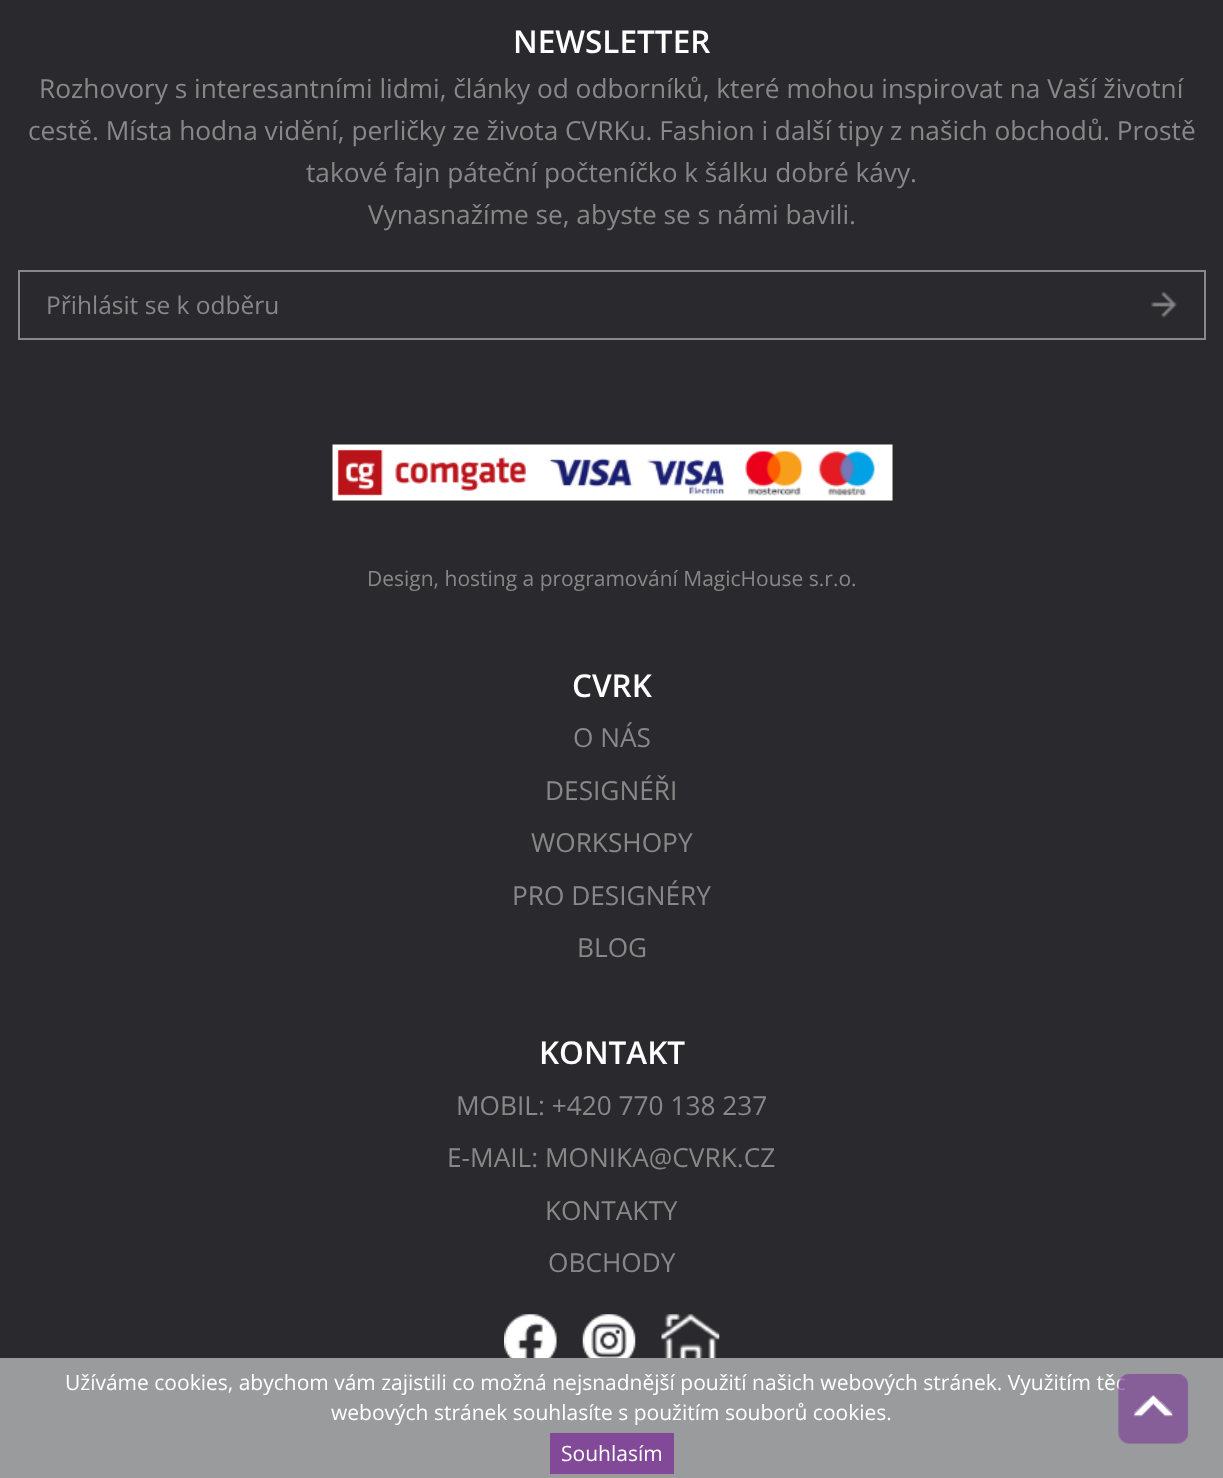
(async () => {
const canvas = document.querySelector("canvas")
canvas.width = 1223
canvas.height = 1478
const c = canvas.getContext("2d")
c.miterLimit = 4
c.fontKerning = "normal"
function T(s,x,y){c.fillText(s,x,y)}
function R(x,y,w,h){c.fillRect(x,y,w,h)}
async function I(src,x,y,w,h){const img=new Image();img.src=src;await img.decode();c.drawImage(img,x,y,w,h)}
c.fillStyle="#2a292e"
R(0,0,1223,1478)
c.font="600 31.5px Open Sans"
c.fillStyle="#fff"
T("NEWSLETTER",513,53)
c.font="26.25px Open Sans"
c.fillStyle="#888"
T("Rozhovory s interesantními lidmi, články od odborníků, které mohou inspirovat na Vaší životní",39,98)
T("cestě. Místa hodna vidění, perličky ze života CVRKu. Fashion i další tipy z našich obchodů. Prostě",28,140)
T("takové fajn páteční počteníčko k šálku dobré kávy.",306,182)
T("Vynasnažíme se, abyste se s námi bavili.",368,224)
await I("1.png",1151,292,26,26)
c.strokeStyle="#888"
c.lineWidth=2
c.strokeRect(19,271,1186,68)
c.font="24.5px Open Sans"
T("Přihlásit se k odběru",46,314)
await I("2.png",332,444,561,57)
c.font="21px Open Sans"
T("Design, hosting a programování MagicHouse s.r.o.",367,586)
c.font="600 31.5px Open Sans"
c.fillStyle="#fff"
T("CVRK",572,697)
c.font="26.25px Open Sans"
c.fillStyle="#888"
T("O NÁS",573,747)
T("DESIGNÉŘI",545,800)
T("WORKSHOPY",531,852)
T("PRO DESIGNÉRY",512,905)
T("BLOG",577,957)
c.font="600 31.5px Open Sans"
c.fillStyle="#fff"
T("KONTAKT",539,1064)
c.font="26.25px Open Sans"
c.fillStyle="#888"
T("MOBIL: +420 770 138 237",456,1115)
T("E-MAIL: MONIKA@CVRK.CZ",447,1167)
T("KONTAKTY",545,1220)
T("OBCHODY",548,1272)
await I("3.png",504,1314,53,44)
await I("4.png",582,1314,54,44)
await I("5.png",661,1314,59,44)
c.fillStyle="#999b9d"
R(0,1358,1223,120)
c.font="21px Open Sans"
c.fillStyle="#fff"
T("Užíváme cookies, abychom vám zajistili co možná nejsnadnější použití našich webových stránek. Využitím těc",65,1390)
T("webových stránek souhlasíte s použitím souborů cookies.",331,1420)
c.fillStyle="#814997"
R(550,1433,124,41)
c.fillStyle="#fff"
T("Souhlasím",561,1461)
await I("6.png",1118,1373,71,71)
})()
